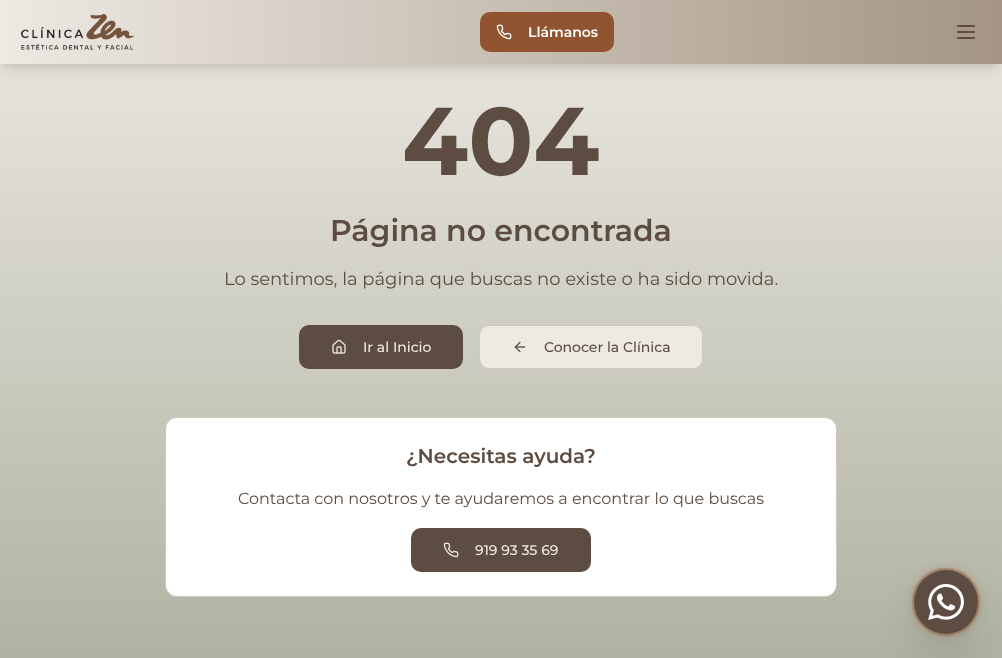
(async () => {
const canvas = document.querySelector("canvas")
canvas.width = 1002
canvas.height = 658
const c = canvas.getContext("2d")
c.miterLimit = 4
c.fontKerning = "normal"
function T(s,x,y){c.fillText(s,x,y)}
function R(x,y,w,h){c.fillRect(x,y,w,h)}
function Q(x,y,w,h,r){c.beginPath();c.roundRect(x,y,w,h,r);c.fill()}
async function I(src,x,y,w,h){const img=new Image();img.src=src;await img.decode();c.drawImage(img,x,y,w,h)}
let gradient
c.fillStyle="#fff"
R(0,0,1002,658)
gradient = c.createLinearGradient(501,0,501,658)
gradient.addColorStop(0,"#ede9e3")
gradient.addColorStop(1,"#b0b3a2")
c.fillStyle = gradient
R(0,64,1002,594)
c.fillStyle="#0000001a"
c.filter="blur(3px)"
c.beginPath()
c.rect(4,8,994,56)
c.fill()
c.filter="none"
c.filter="blur(7.5px)"
c.beginPath()
c.rect(3,13,996,58)
c.fill()
c.filter="none"
gradient = c.createLinearGradient(0,32,1002,32)
gradient.addColorStop(0,"#ede9e3")
gradient.addColorStop(1,"#a49584")
c.fillStyle = gradient
R(0,0,1002,64)
await I("1.png",21,13,114,37)
c.fillStyle="#915430"
Q(480,12,134,40,10)
await I("2.png",496,24,16,16)
c.font="600 14px Montserrat"
c.fillStyle="#fff"
T("Llámanos",528,37)
await I("3.png",957,25,18,14)
c.font="bold 96px Montserrat"
c.fillStyle="#5d4c41"
T("404",402,175)
c.font="600 30px Montserrat"
T("Página no encontrada",330,241)
c.font="18px Montserrat"
T("Lo sentimos, la página que buscas no existe o ha sido movida.",224,285)
Q(299,325,164,44,10)
await I("4.png",332,339,14,15)
c.font="500 14px Montserrat"
c.fillStyle="#ede9e3"
T("Ir al Inicio",363,352)
c.beginPath()
c.roundRect(479.5,325.5,223,43,9.5)
c.fill()
c.strokeStyle="#cfc7be"
c.stroke()
await I("5.png",514,341,12,12)
c.fillStyle="#5d4c41"
T("Conocer la Clínica",544,352)
c.fillStyle="#fff"
c.beginPath()
c.roundRect(165.5,417.5,671,179,11.5)
c.fill()
c.stroke()
c.font="600 20px Montserrat"
c.fillStyle="#5d4c41"
T("¿Necesitas ayuda?",406,463)
c.font="16px Montserrat"
T("Contacta con nosotros y te ayudaremos a encontrar lo que buscas",238,504)
Q(411,528,180,44,10)
await I("6.png",443,542,16,16)
c.font="500 14px Montserrat"
c.fillStyle="#ede9e3"
T("919 93 35 69",475,555)
c.fillStyle="#00000040"
c.filter="blur(25px)"
c.beginPath()
c.roundRect(926,607,40,40,20)
c.fill()
c.filter="none"
c.fillStyle="#91543080"
c.filter="blur(4px)"
c.beginPath()
c.roundRect(914,570,64,64,32)
c.fill()
c.filter="none"
c.beginPath()
c.arc(946,602,33,0,7)
c.strokeStyle="#91543066"
c.lineWidth=2
c.stroke()
c.fillStyle="#5d4c41"
c.beginPath()
c.arc(946,602,32,0,7)
c.fill()
await I("7.png",928,584,36,36)
})()
